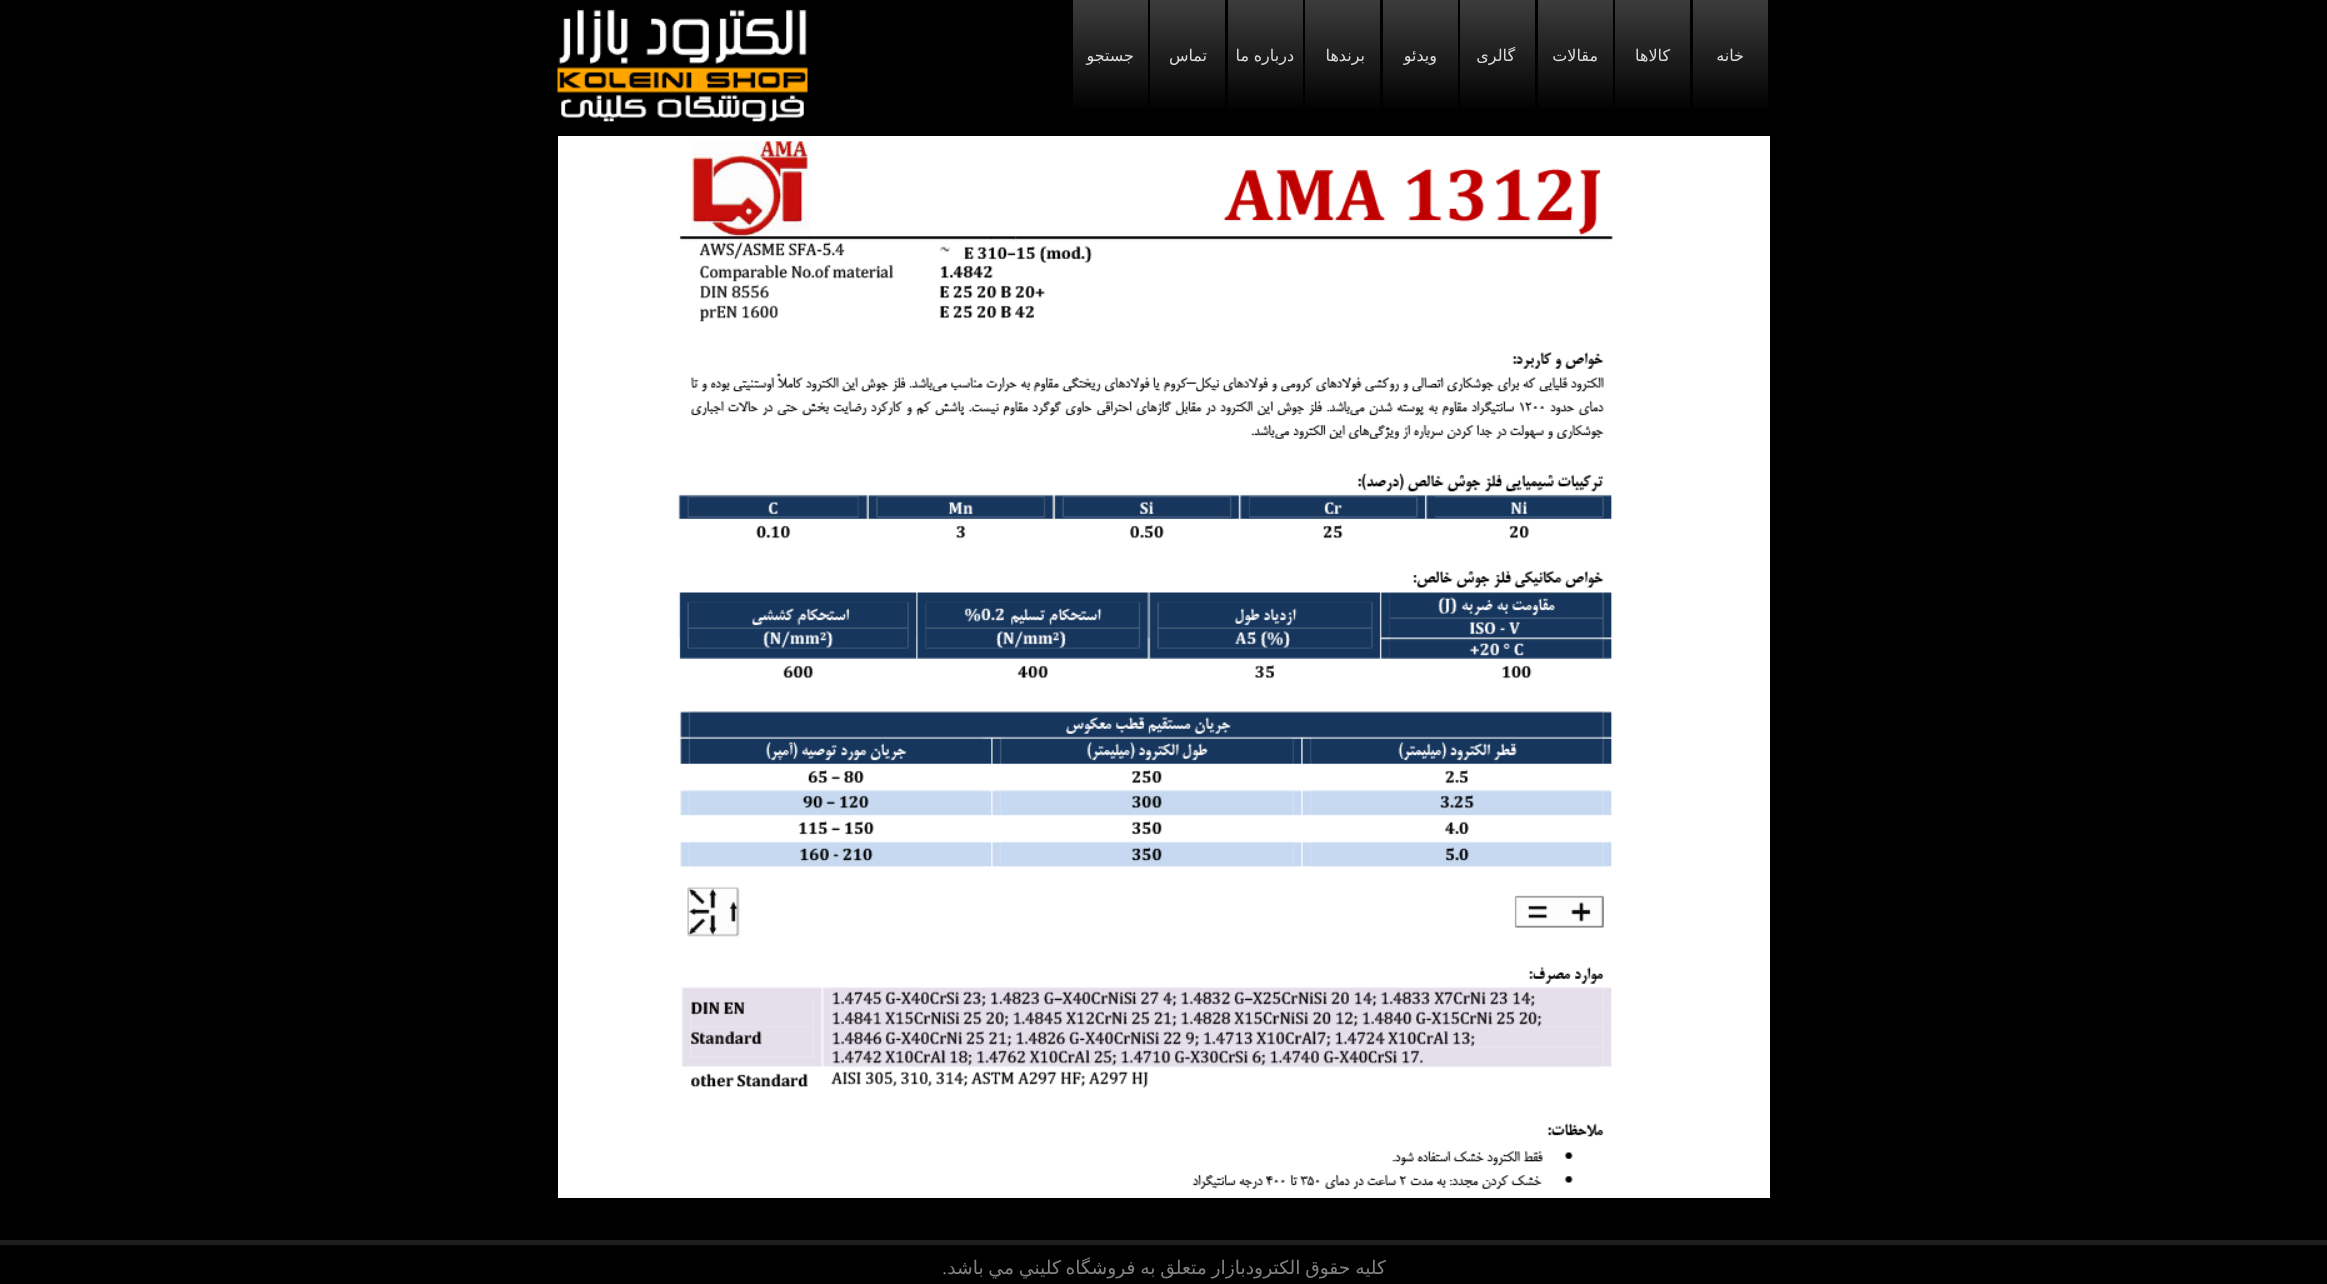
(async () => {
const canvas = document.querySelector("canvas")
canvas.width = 2327
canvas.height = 1284
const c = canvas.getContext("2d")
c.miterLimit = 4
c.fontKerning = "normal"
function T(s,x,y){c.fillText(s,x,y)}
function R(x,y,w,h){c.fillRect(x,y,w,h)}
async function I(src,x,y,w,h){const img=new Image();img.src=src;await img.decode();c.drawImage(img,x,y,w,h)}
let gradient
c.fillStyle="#000"
R(0,0,2327,1284)
gradient = c.createLinearGradient(1730,113,1730,0)
gradient.addColorStop(0,"#000")
gradient.addColorStop(1,"#3c3c3c")
c.fillStyle = gradient
R(1693,0,75,108)
c.direction="rtl"
c.font="16px DejaVu Sans"
c.fillStyle="#dcdcdc"
T("خانه",1744,61)
gradient = c.createLinearGradient(1653,113,1653,0)
gradient.addColorStop(0,"#000")
gradient.addColorStop(1,"#3c3c3c")
c.fillStyle = gradient
R(1615,0,75,108)
c.fillStyle="#dcdcdc"
T("کالاها",1670,61)
gradient = c.createLinearGradient(1575,113,1575,0)
gradient.addColorStop(0,"#000")
gradient.addColorStop(1,"#3c3c3c")
c.fillStyle = gradient
R(1538,0,75,108)
c.fillStyle="#dcdcdc"
T("مقالات",1598,61)
gradient = c.createLinearGradient(1498,113,1498,0)
gradient.addColorStop(0,"#000")
gradient.addColorStop(1,"#3c3c3c")
c.fillStyle = gradient
R(1460,0,75,108)
c.fillStyle="#dcdcdc"
T("گالری",1515,61)
gradient = c.createLinearGradient(1420,113,1420,0)
gradient.addColorStop(0,"#000")
gradient.addColorStop(1,"#3c3c3c")
c.fillStyle = gradient
R(1383,0,75,108)
c.fillStyle="#dcdcdc"
T("ویدئو",1437,61)
gradient = c.createLinearGradient(1343,113,1343,0)
gradient.addColorStop(0,"#000")
gradient.addColorStop(1,"#3c3c3c")
c.fillStyle = gradient
R(1305,0,75,108)
c.fillStyle="#dcdcdc"
T("برندها",1365,61)
gradient = c.createLinearGradient(1265,113,1265,0)
gradient.addColorStop(0,"#000")
gradient.addColorStop(1,"#3c3c3c")
c.fillStyle = gradient
R(1228,0,75,108)
c.fillStyle="#dcdcdc"
T("درباره",1294,61)
T("ما",1249,61)
gradient = c.createLinearGradient(1188,113,1188,0)
gradient.addColorStop(0,"#000")
gradient.addColorStop(1,"#3c3c3c")
c.fillStyle = gradient
R(1150,0,75,108)
c.fillStyle="#dcdcdc"
T("تماس",1207,61)
gradient = c.createLinearGradient(1110,113,1110,0)
gradient.addColorStop(0,"#000")
gradient.addColorStop(1,"#3c3c3c")
c.fillStyle = gradient
R(1073,0,75,108)
c.fillStyle="#dcdcdc"
T("جستجو",1134,61)
await I("1.png",557,9,251,113)
c.fillStyle="#fff"
R(558,136,1212,1062)
await I("2.png",678,141,935,1048)
c.wordSpacing="-1.25px"
c.font="18.75px DejaVu Sans"
c.fillStyle="#808080"
T("کليه حقوق الکترودبازار متعلق به فروشگاه کليني مي باشد",1386,1274)
c.wordSpacing="0px"
c.font="18.75px Liberation Serif"
T(".",947,1274)
c.fillStyle="#1e1e1e"
R(0,1240,2327,5)
})()
